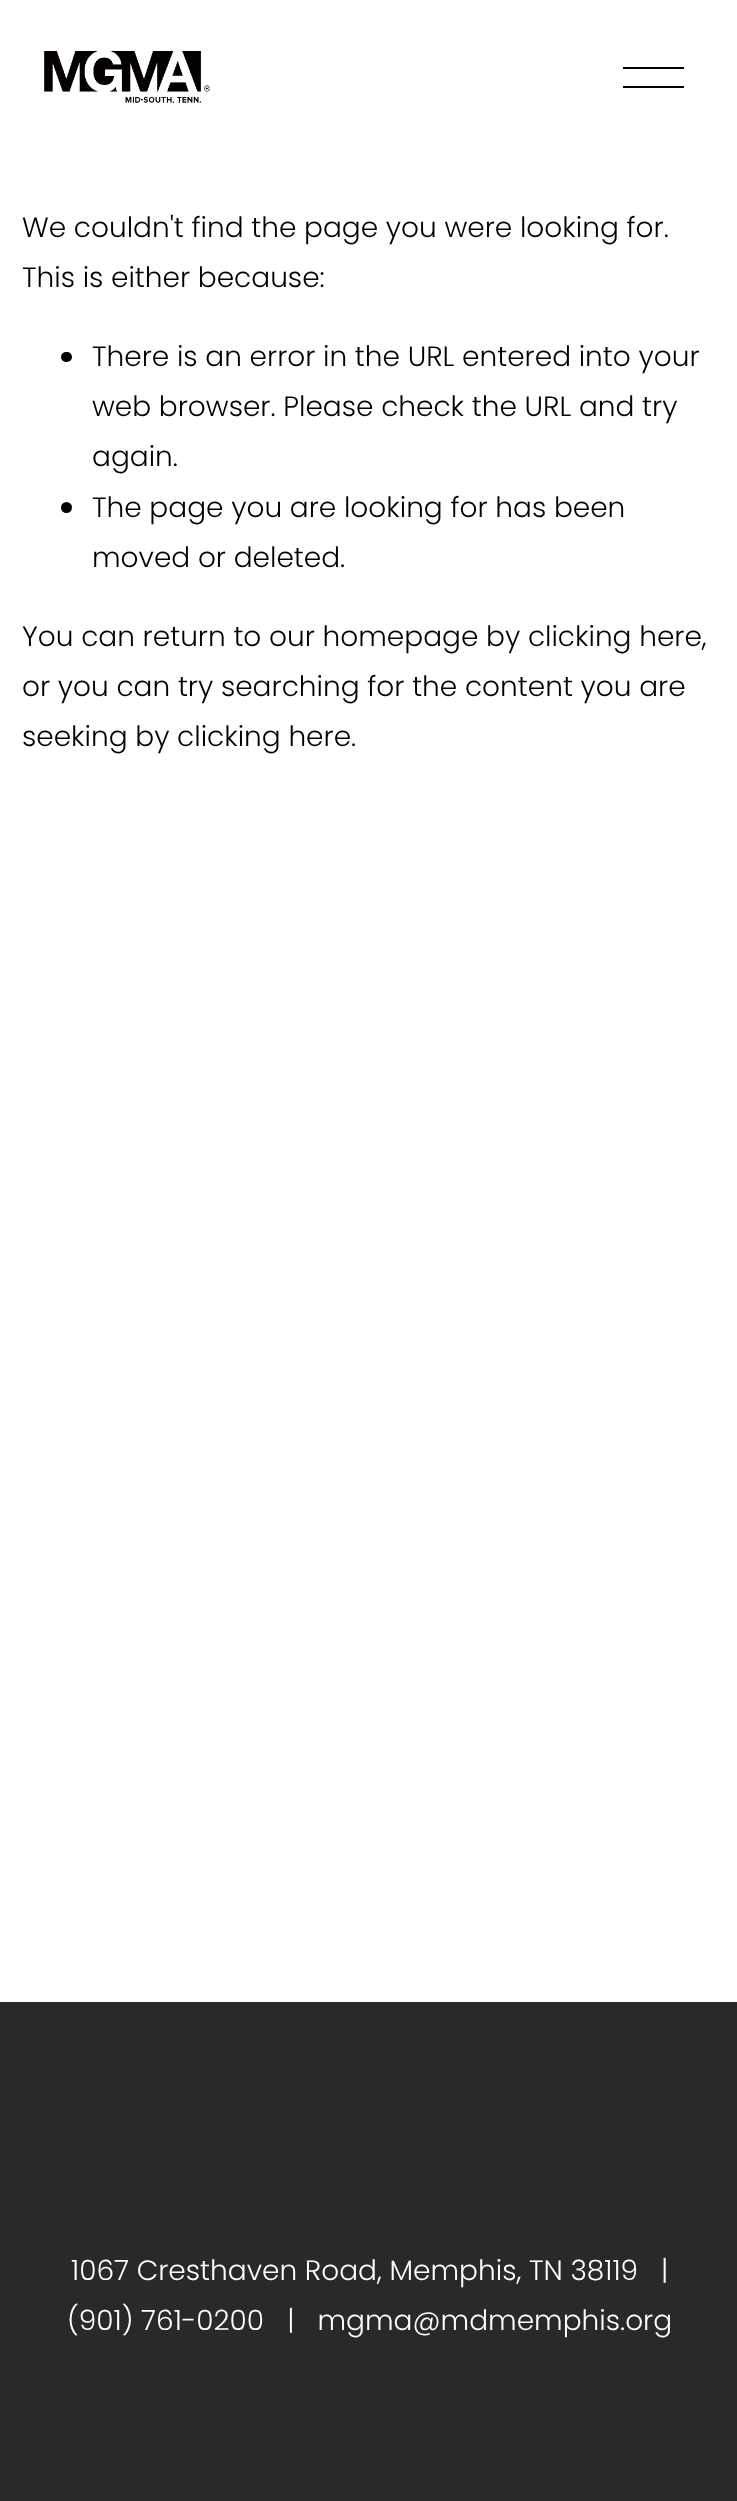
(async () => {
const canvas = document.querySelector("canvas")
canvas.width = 737
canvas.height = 2501
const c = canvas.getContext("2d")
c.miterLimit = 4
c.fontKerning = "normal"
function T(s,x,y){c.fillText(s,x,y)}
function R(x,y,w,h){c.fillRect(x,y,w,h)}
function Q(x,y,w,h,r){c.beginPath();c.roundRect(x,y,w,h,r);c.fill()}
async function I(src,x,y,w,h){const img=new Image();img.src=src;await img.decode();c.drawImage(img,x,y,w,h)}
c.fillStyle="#fff"
R(0,0,737,2501)
await I("1.png",44,50,166,54)
c.fillStyle="#000"
R(623,67,61,2)
R(623,86,61,2)
c.font="300 28px Poppins"
T("We couldn't find the page you were looking for.",22,237)
T("This is either because:",22,287)
Q(61,352,11,10,5)
T("There is an error in the URL entered into your",92,366)
T("web browser. Please check the URL and try",92,416)
T("again.",92,466)
c.beginPath()
c.arc(66.5,507.5,5.5,0,7)
c.fill()
T("The page you are looking for has been",92,517)
T("moved or deleted.",92,567)
T("You can return to our homepage by clicking here,",22,646)
T("or you can try searching for the content you are",22,696)
T("seeking by clicking here.",22,746)
c.fillStyle="#2a2829"
R(0,2002,737,499)
c.fillStyle="#fff"
T("1067 Cresthaven Road, Memphis, TN 38119   |",71,2280)
T("(901) 761-0200   |   mgma@mdmemphis.org",67,2330)
})()
